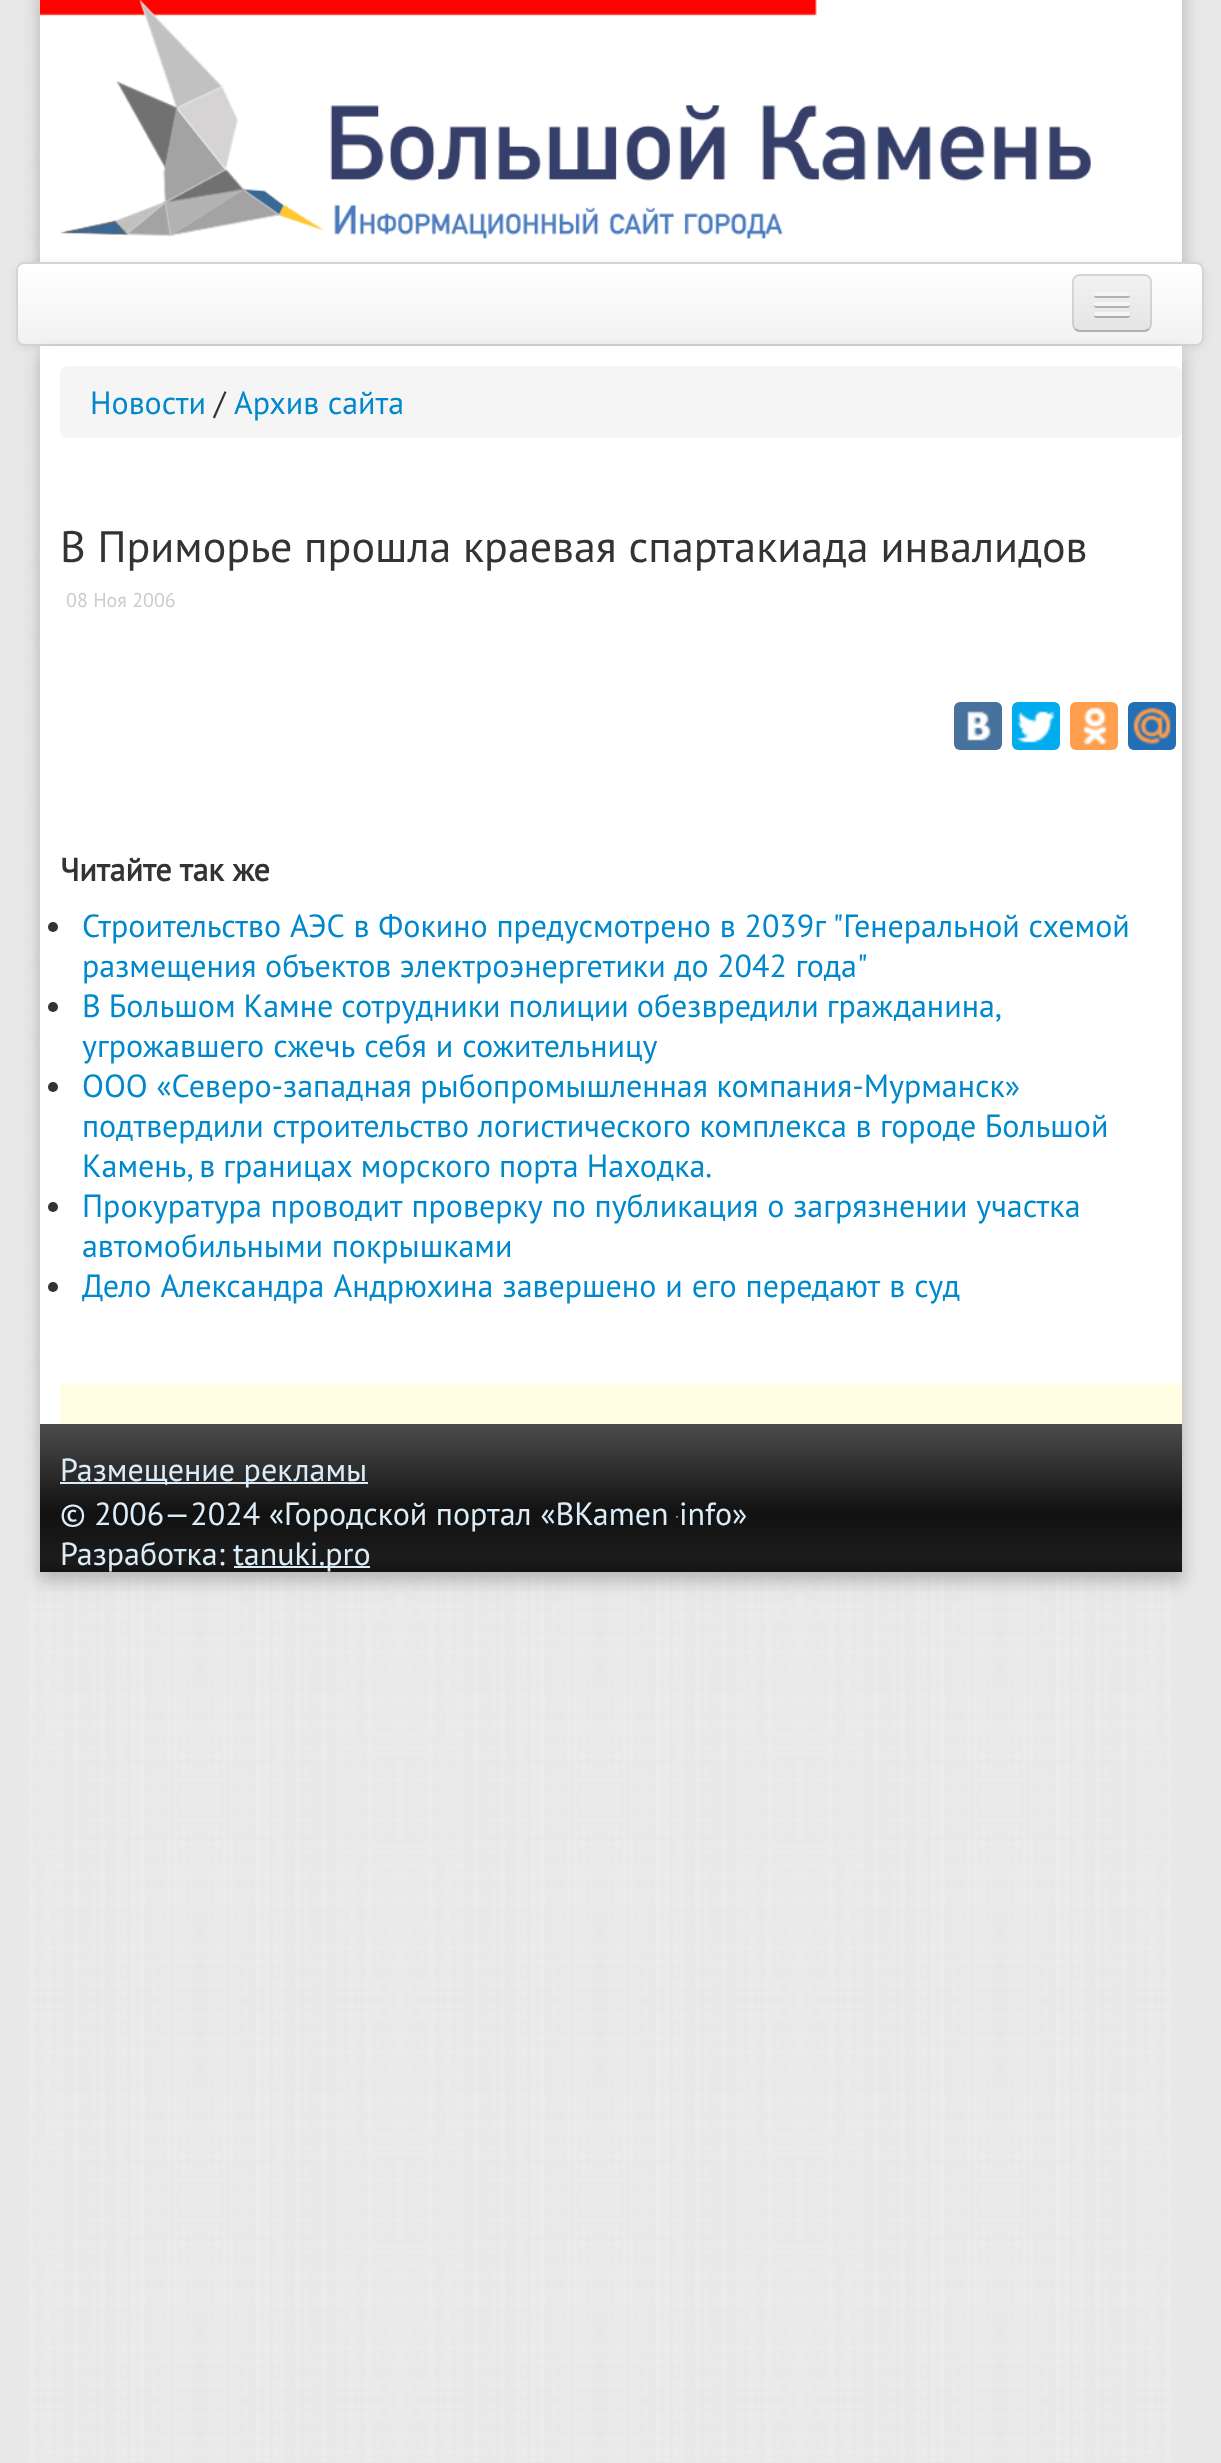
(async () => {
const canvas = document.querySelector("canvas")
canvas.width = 1221
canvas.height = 2463
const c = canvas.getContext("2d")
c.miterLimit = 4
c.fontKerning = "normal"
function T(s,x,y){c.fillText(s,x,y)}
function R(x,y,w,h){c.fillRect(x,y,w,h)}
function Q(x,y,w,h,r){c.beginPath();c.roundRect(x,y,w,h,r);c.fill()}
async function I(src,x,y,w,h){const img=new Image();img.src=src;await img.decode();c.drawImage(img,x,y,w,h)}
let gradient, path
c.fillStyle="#e8e8e8"
R(0,0,1221,2463)
await I("1.png",29,16,1142,2446)
c.fillStyle="#00000033"
c.filter="blur(8px)"
c.beginPath()
c.rect(38,-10,1146,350)
c.fill()
c.filter="none"
c.fillStyle="#fff"
R(40,0,1142,262)
await I("2.png",40,0,1051,239)
c.fillStyle="#00000012"
c.filter="blur(4px)"
c.beginPath()
c.roundRect(16,264,1188,84,8)
c.fill()
c.filter="none"
c.save()
c.beginPath()
c.roundRect(16,262,1188,84,8)
c.clip()
gradient = c.createLinearGradient(610,264,610,344)
gradient.addColorStop(0,"#fff")
gradient.addColorStop(1,"#f2f2f2")
c.fillStyle = gradient
R(16,264,1188,80)
c.restore()
c.beginPath()
c.roundRect(17,263,1186,82,7)
c.strokeStyle="#d4d4d4"
c.lineWidth=2
c.stroke()
c.fillStyle="#00000033"
c.filter="blur(8px)"
c.beginPath()
c.rect(38,352,1146,1230)
c.fill()
c.filter="none"
c.fillStyle="#ededed"
Q(1072,274,80,58,8)
c.save()
c.beginPath()
c.roundRect(1072,274,80,58,8)
c.clip()
gradient = c.createLinearGradient(1112,276,1112,330)
gradient.addColorStop(0,"#f2f2f2")
gradient.addColorStop(1,"#e5e5e5")
c.fillStyle = gradient
R(1072,276,80,54)
c.restore()
path = new Path2D("M1149 329c-1.5 1.5-3 2-5 2h-64c-2 0-3.5-.5-5-2")
c.strokeStyle="#00000040"
c.stroke(path)
path = new Path2D("M1075 329c-1.5-1.5-2-3-2-5v-42c0-2 .5-3.5 2-5c1.5-1.5 3-2 5-2h64c2 0 3.5 .5 5 2c1.5 1.5 2 3 2 5v42c0 2-.5 3.5-2 5")
c.strokeStyle="#0000001a"
c.stroke(path)
c.fillStyle="#b2b2b2"
path = new Path2D("M1094.5 295c-2.5 4 6.5 3 7 3h21c.5 0 9.5 1 7-3c0 .5-1 1-1.5 1h-32c-.5 0-1.5-.5-1.5-1z")
c.fill(path)
c.fillStyle="#f5f5f5"
Q(1094,292,36,4,2)
c.fillStyle="#b0b0b0"
path = new Path2D("M1094.5 305c-2.5 4 6.5 3 7 3h21c.5 0 9.5 1 7-3c0 .5-1 1-1.5 1h-32c-.5 0-1.5-.5-1.5-1z")
c.fill(path)
c.fillStyle="#f5f5f5"
Q(1094,302,36,4,2)
c.fillStyle="#aeaeae"
path = new Path2D("M1094.5 315c-2.5 4 6.5 3 7 3h21c.5 0 9.5 1 7-3c0 .5-1 1-1.5 1h-32c-.5 0-1.5-.5-1.5-1z")
c.fill(path)
c.fillStyle="#f5f5f5"
Q(1094,312,36,4,2)
c.fillStyle="#fff"
R(40,346,1142,1078)
c.fillStyle="#f5f5f5"
Q(60,366,1122,72,8)
c.font="32px PT Sans"
c.fillStyle="#08c"
T("Новости",90,414)
c.fillStyle="#333"
T("/",214,414)
c.fillStyle="#08c"
T("Архив сайта",234,414)
c.font="44px PT Sans"
c.fillStyle="#333"
T("В Приморье прошла краевая спартакиада инвалидов",60,562)
c.font="20px PT Sans"
c.fillStyle="#ccc"
T("08 Ноя 2006",66,607)
c.fillStyle="#48729e"
Q(954,702,48,48,6)
await I("3.png",967,711,24,30)
c.fillStyle="#00aced"
Q(1012,702,48,48,6)
await I("4.png",1017,711,38,32)
c.fillStyle="#ff9f4d"
Q(1070,702,48,48,6)
await I("5.png",1083,707,24,38)
c.fillStyle="#226eb7"
Q(1128,702,48,48,6)
await I("6.png",1133,707,38,38)
c.wordSpacing="0.5px"
c.font="bold 32px PT Sans"
c.fillStyle="#333"
T("Читайте так же",60,881)
c.beginPath()
c.arc(53,927,5,0,7)
c.fill()
c.wordSpacing="0.25px"
c.font="32px PT Sans"
c.fillStyle="#08c"
T("Строительство АЭС в Фокино предусмотрено в 2039г \"Генеральной схемой",82,937)
c.wordSpacing="0px"
T("размещения объектов электроэнергетики до 2042 года\"",82,977)
c.fillStyle="#333"
c.beginPath()
c.arc(53,1007,5,0,7)
c.fill()
c.wordSpacing="-0.5px"
c.fillStyle="#08c"
T("В Большом Камне сотрудники полиции обезвредили гражданина,",82,1017)
c.wordSpacing="0.5px"
T("угрожавшего сжечь себя и сожительницу",82,1057)
c.fillStyle="#333"
c.beginPath()
c.arc(53,1087,5,0,7)
c.fill()
c.wordSpacing="0px"
c.fillStyle="#08c"
T("ООО «Северо-западная рыбопромышленная компания-Мурманск»",82,1097)
T("подтвердили строительство логистического комплекса в городе Большой",82,1137)
c.wordSpacing="-0.5px"
T("Камень, в границах морского порта Находка.",82,1177)
c.fillStyle="#333"
c.beginPath()
c.arc(53,1207,5,0,7)
c.fill()
c.wordSpacing="0.25px"
c.fillStyle="#08c"
T("Прокуратура проводит проверку по публикация о загрязнении участка",82,1217)
c.wordSpacing="0px"
T("автомобильными покрышками",82,1257)
c.fillStyle="#333"
c.beginPath()
c.arc(53,1287,5,0,7)
c.fill()
c.wordSpacing="0.5px"
c.fillStyle="#08c"
T("Дело Александра Андрюхина завершено и его передают в суд",82,1297)
c.fillStyle="#fffee2"
R(60,1384,1122,40)
gradient = c.createLinearGradient(611,1424,611,1572)
gradient.addColorStop(0,"#4c4c4c")
gradient.addColorStop(.6,"#111")
gradient.addColorStop(.91,"#1c1c1c")
gradient.addColorStop(1,"#131313")
c.fillStyle = gradient
R(40,1424,1142,148)
c.fillStyle="#dbedf8"
R(60,1482,308,2)
c.wordSpacing="0px"
T("Размещение рекламы",60,1481)
T("© 2006—2024 «Городской портал «BKamen",60,1525)
await I("7.png",676,1516,2,2)
T("info»",679,1525)
T("Разработка:",60,1565)
R(234,1566,136,2)
T("tanuki.pro",233,1565)
})()
